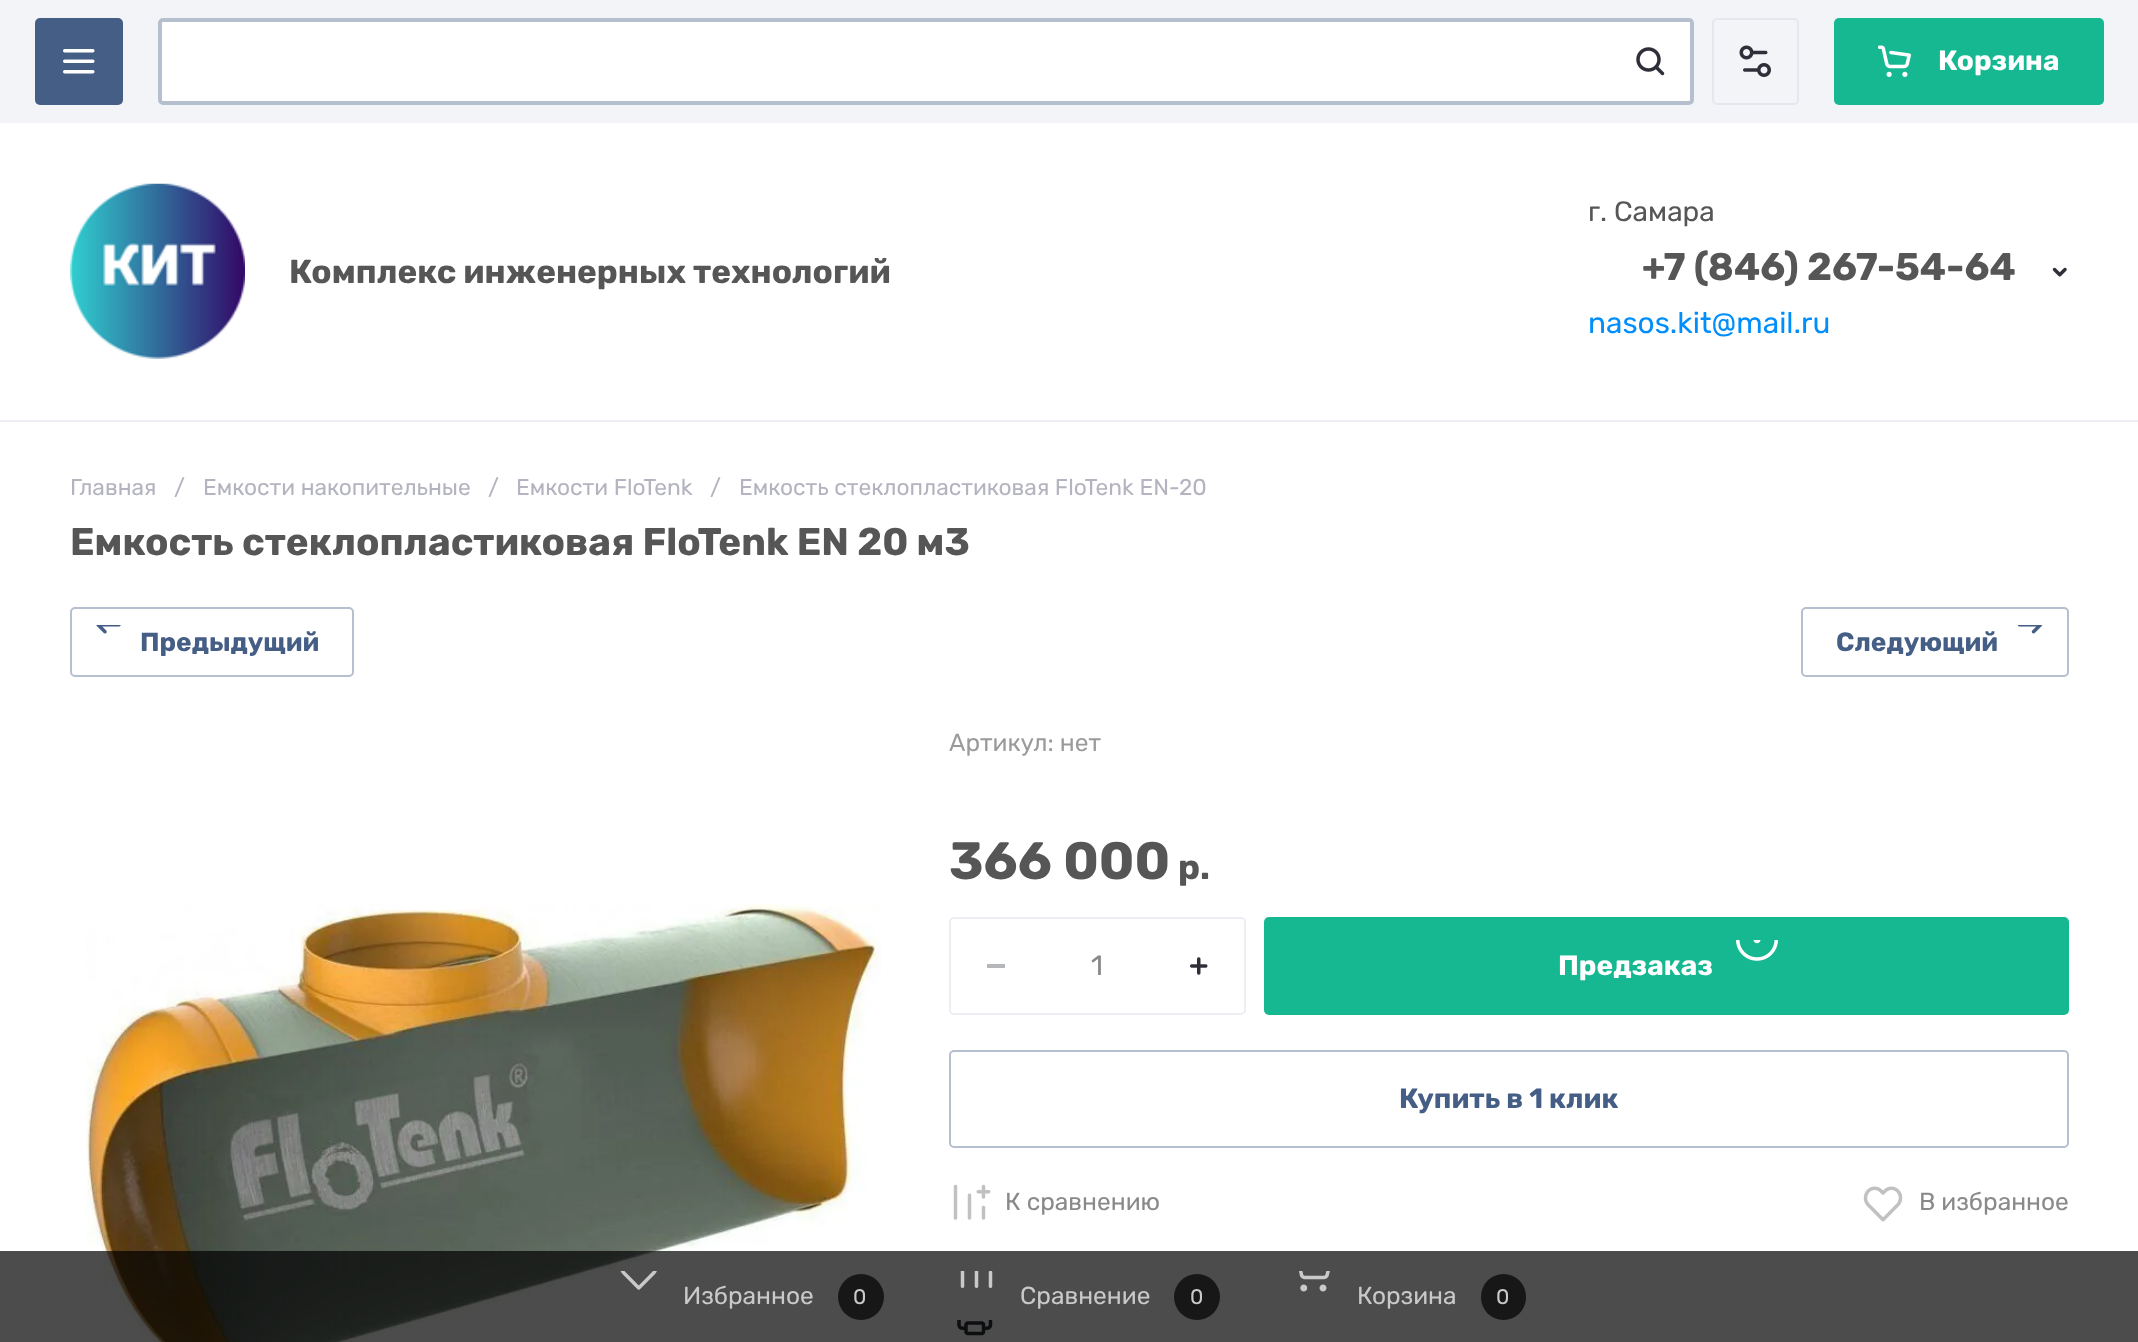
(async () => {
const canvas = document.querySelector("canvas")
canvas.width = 2138
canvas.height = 1342
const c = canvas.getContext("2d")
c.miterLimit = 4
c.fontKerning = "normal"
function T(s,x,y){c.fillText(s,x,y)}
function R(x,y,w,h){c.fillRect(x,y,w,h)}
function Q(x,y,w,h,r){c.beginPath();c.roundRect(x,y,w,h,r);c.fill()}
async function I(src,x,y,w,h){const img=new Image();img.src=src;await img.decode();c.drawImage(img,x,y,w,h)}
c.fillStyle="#fff"
R(0,0,2138,1342)
c.fillStyle="#f2f4f8"
R(0,0,2138,123)
c.fillStyle="#455e85"
Q(35,18,88,87,5)
await I("1.png",63,49,32,25)
c.fillStyle="#fff"
Q(158,18,1536,87,5)
c.beginPath()
c.roundRect(160,20,1532,83,3)
c.strokeStyle="#455e8566"
c.lineWidth=4
c.stroke()
await I("2.png",1636,47,29,29)
c.beginPath()
c.roundRect(1713,19,85,85,4)
c.strokeStyle="#e5e7ee"
c.lineWidth=2
c.stroke()
await I("3.png",1739,45,32,32)
c.fillStyle="#16b891"
Q(1834,18,270,87,5)
await I("4.png",1878,45,33,32)
c.font="bold 28px Rubik"
c.fillStyle="#fff"
T("Корзина",1938,70)
c.fillStyle="#ededf3"
R(0,420,2138,2)
await I("5.png",70,183,175,176)
c.font="bold 33.25px Rubik"
c.fillStyle="#565656"
T("Комплекс инженерных технологий",289,283)
c.font="28px Rubik"
T("г. Самара",1588,221)
c.font="bold 38.5px Rubik"
T("+7 (846) 267-54-64",1642,280)
c.font="29.75px Rubik"
c.fillStyle="#008efc"
T("nasos.kit@mail.ru",1588,333)
await I("6.png",2052,267,15,10)
c.font="22.75px Rubik"
c.fillStyle="#b3b4bf"
T("Главная",70,495)
T("/",174,495)
T("Емкости накопительные",203,495)
T("/",488,495)
T("Емкости FloTenk",516,495)
T("/",710,495)
T("Емкость стеклопластиковая FloTenk EN-20",739,495)
c.font="bold 38.5px Rubik"
c.fillStyle="#565656"
T("Емкость стеклопластиковая FloTenk EN 20 м3",70,555)
c.beginPath()
c.roundRect(71,608,282,68,4)
c.strokeStyle="#b5bfce"
c.stroke()
await I("7.png",96,625,25,9)
c.font="bold 26.25px Rubik"
c.fillStyle="#455e85"
T("Предыдущий",140,651)
c.beginPath()
c.roundRect(1802,608,266,68,4)
c.stroke()
await I("8.png",2017,625,26,9)
T("Следующий",1836,651)
await I("9.png",86,903,795,439)
c.font="24.5px Rubik"
c.fillStyle="#9a9a9a"
T("Артикул: нет",949,751)
c.font="bold 52.5px Rubik"
c.fillStyle="#565656"
T("366 000",949,879)
c.font="bold 35px Rubik"
T("р.",1178,879)
c.beginPath()
c.roundRect(950,918,295,96,4)
c.strokeStyle="#ededf3"
c.stroke()
c.fillStyle="#b6b7ba"
R(987,964,18,4)
c.font="28px Rubik"
c.fillStyle="#898989"
T("1",1091,975)
await I("10.png",1190,957,18,18)
c.fillStyle="#16b891"
Q(1264,917,805,98,5)
await I("11.png",1736,940,42,21)
c.font="bold 28px Rubik"
c.fillStyle="#fff"
T("Предзаказ",1558,975)
c.beginPath()
c.roundRect(950,1051,1118,96,4)
c.strokeStyle="#b5bfce"
c.stroke()
c.fillStyle="#455e85"
T("Купить в 1 клик",1399,1108)
await I("12.png",953,1184,38,36)
c.font="24.5px Rubik"
c.fillStyle="#898989"
T("К сравнению",1005,1210)
await I("13.png",1863,1186,40,36)
T("В избранное",1919,1210)
await I("14.png",957,1320,36,16)
c.fillStyle="#000000b3"
R(0,1251,2138,91)
await I("15.png",620,1271,37,19)
c.fillStyle="#c9c9c9"
T("Избранное",683,1304)
c.fillStyle="#171717"
c.beginPath()
c.arc(861,1297,23,0,7)
c.fill()
c.font="21px Rubik"
c.fillStyle="#c9c9c9"
T("0",853,1304)
await I("16.png",960,1271,33,17)
c.font="24.5px Rubik"
T("Сравнение",1020,1304)
c.fillStyle="#171717"
c.beginPath()
c.arc(1197,1297,23,0,7)
c.fill()
c.font="21px Rubik"
c.fillStyle="#c9c9c9"
T("0",1190,1304)
await I("17.png",1299,1271,31,21)
c.font="24.5px Rubik"
T("Корзина",1357,1304)
c.fillStyle="#171717"
Q(1481,1274,45,46,22.5)
c.font="21px Rubik"
c.fillStyle="#c9c9c9"
T("0",1496,1304)
})()
